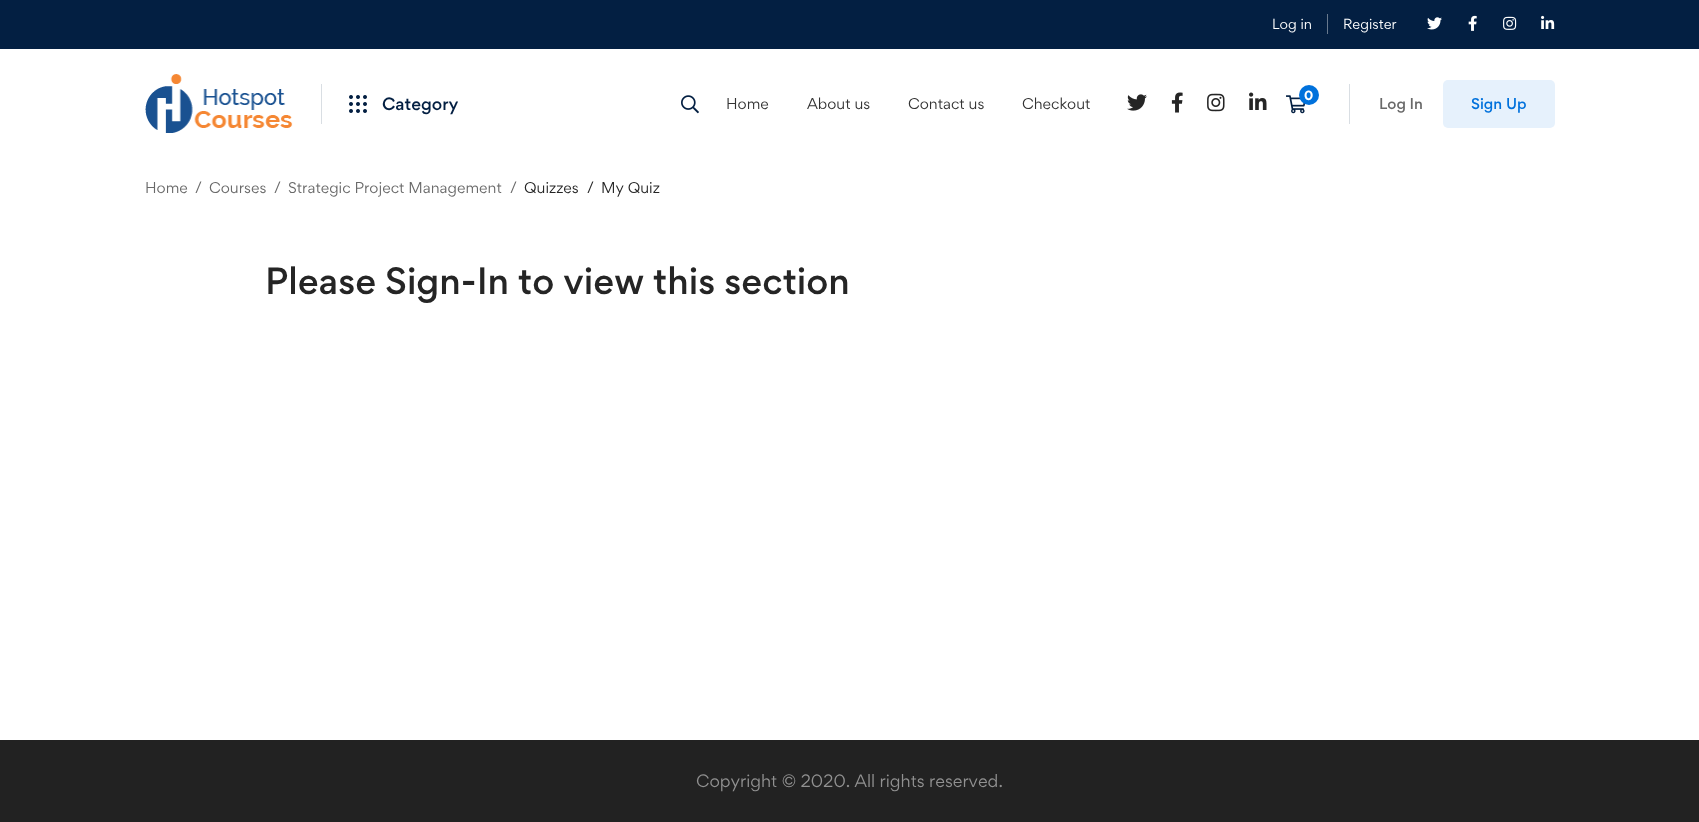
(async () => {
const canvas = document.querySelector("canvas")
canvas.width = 1699
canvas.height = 822
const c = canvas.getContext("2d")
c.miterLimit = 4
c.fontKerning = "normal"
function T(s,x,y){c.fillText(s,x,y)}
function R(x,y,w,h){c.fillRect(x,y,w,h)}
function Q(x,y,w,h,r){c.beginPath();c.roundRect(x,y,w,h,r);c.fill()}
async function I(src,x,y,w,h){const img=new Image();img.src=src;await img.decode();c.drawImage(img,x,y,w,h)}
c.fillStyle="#fff"
R(0,0,1699,822)
c.fillStyle="#031f42"
R(0,0,1699,49)
c.font="13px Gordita"
c.fillStyle="#fff"
T("Log in",1272,29)
c.fillStyle="#68798e"
R(1327,14,1,20)
c.fillStyle="#fff"
T("Register",1343,29)
await I("1.png",1427,17,15,13)
await I("2.png",1468,15,9,16)
await I("3.png",1503,16,14,14)
await I("4.png",1541,15,14,14)
await I("5.png",145,74,148,59)
c.fillStyle="#d9dee3"
R(321,84,1,40)
await I("6.png",349,95,18,18)
c.font="500 16px Gordita"
c.fillStyle="#031f42"
T("Category",382,110)
await I("7.png",681,95,18,19)
c.font="14px Gordita"
c.fillStyle="#333"
T("Home",726,109)
T("About us",807,109)
T("Contact us",908,109)
T("Checkout",1022,109)
await I("8.png",1127,94,20,17)
await I("9.png",1171,92,12,21)
await I("10.png",1207,93,18,19)
await I("11.png",1249,92,18,18)
await I("12.png",1286,95,19,19)
c.fillStyle="#0071dc"
c.beginPath()
c.arc(1309,95,10,0,7)
c.fill()
c.font="bold 12px Gordita"
c.fillStyle="#fff"
T("0",1304,100)
c.fillStyle="#d9dee3"
R(1349,84,1,40)
c.font="500 14px Gordita"
c.fillStyle="#696969"
T("Log In",1379,109)
c.fillStyle="#e6f1fc"
Q(1443,80,112,48,5)
c.fillStyle="#0071dc"
T("Sign Up",1471,109)
c.font="14px Gordita"
c.fillStyle="#696969"
T("Home",145,193)
T("/",195,193)
T("Courses",209,193)
T("/",274,193)
T("Strategic Project Management",288,193)
T("/",510,193)
c.fillStyle="#252525"
T("Quizzes",524,193)
T("/",587,193)
T("My Quiz",601,193)
c.font="500 34px Gordita"
T("Please Sign-In to view this section",265,294)
c.fillStyle="#222"
R(0,740,1699,82)
c.font="16px Gordita"
c.fillStyle="#919191"
T("Copyright © 2020. All rights reserved.",696,787)
})()
